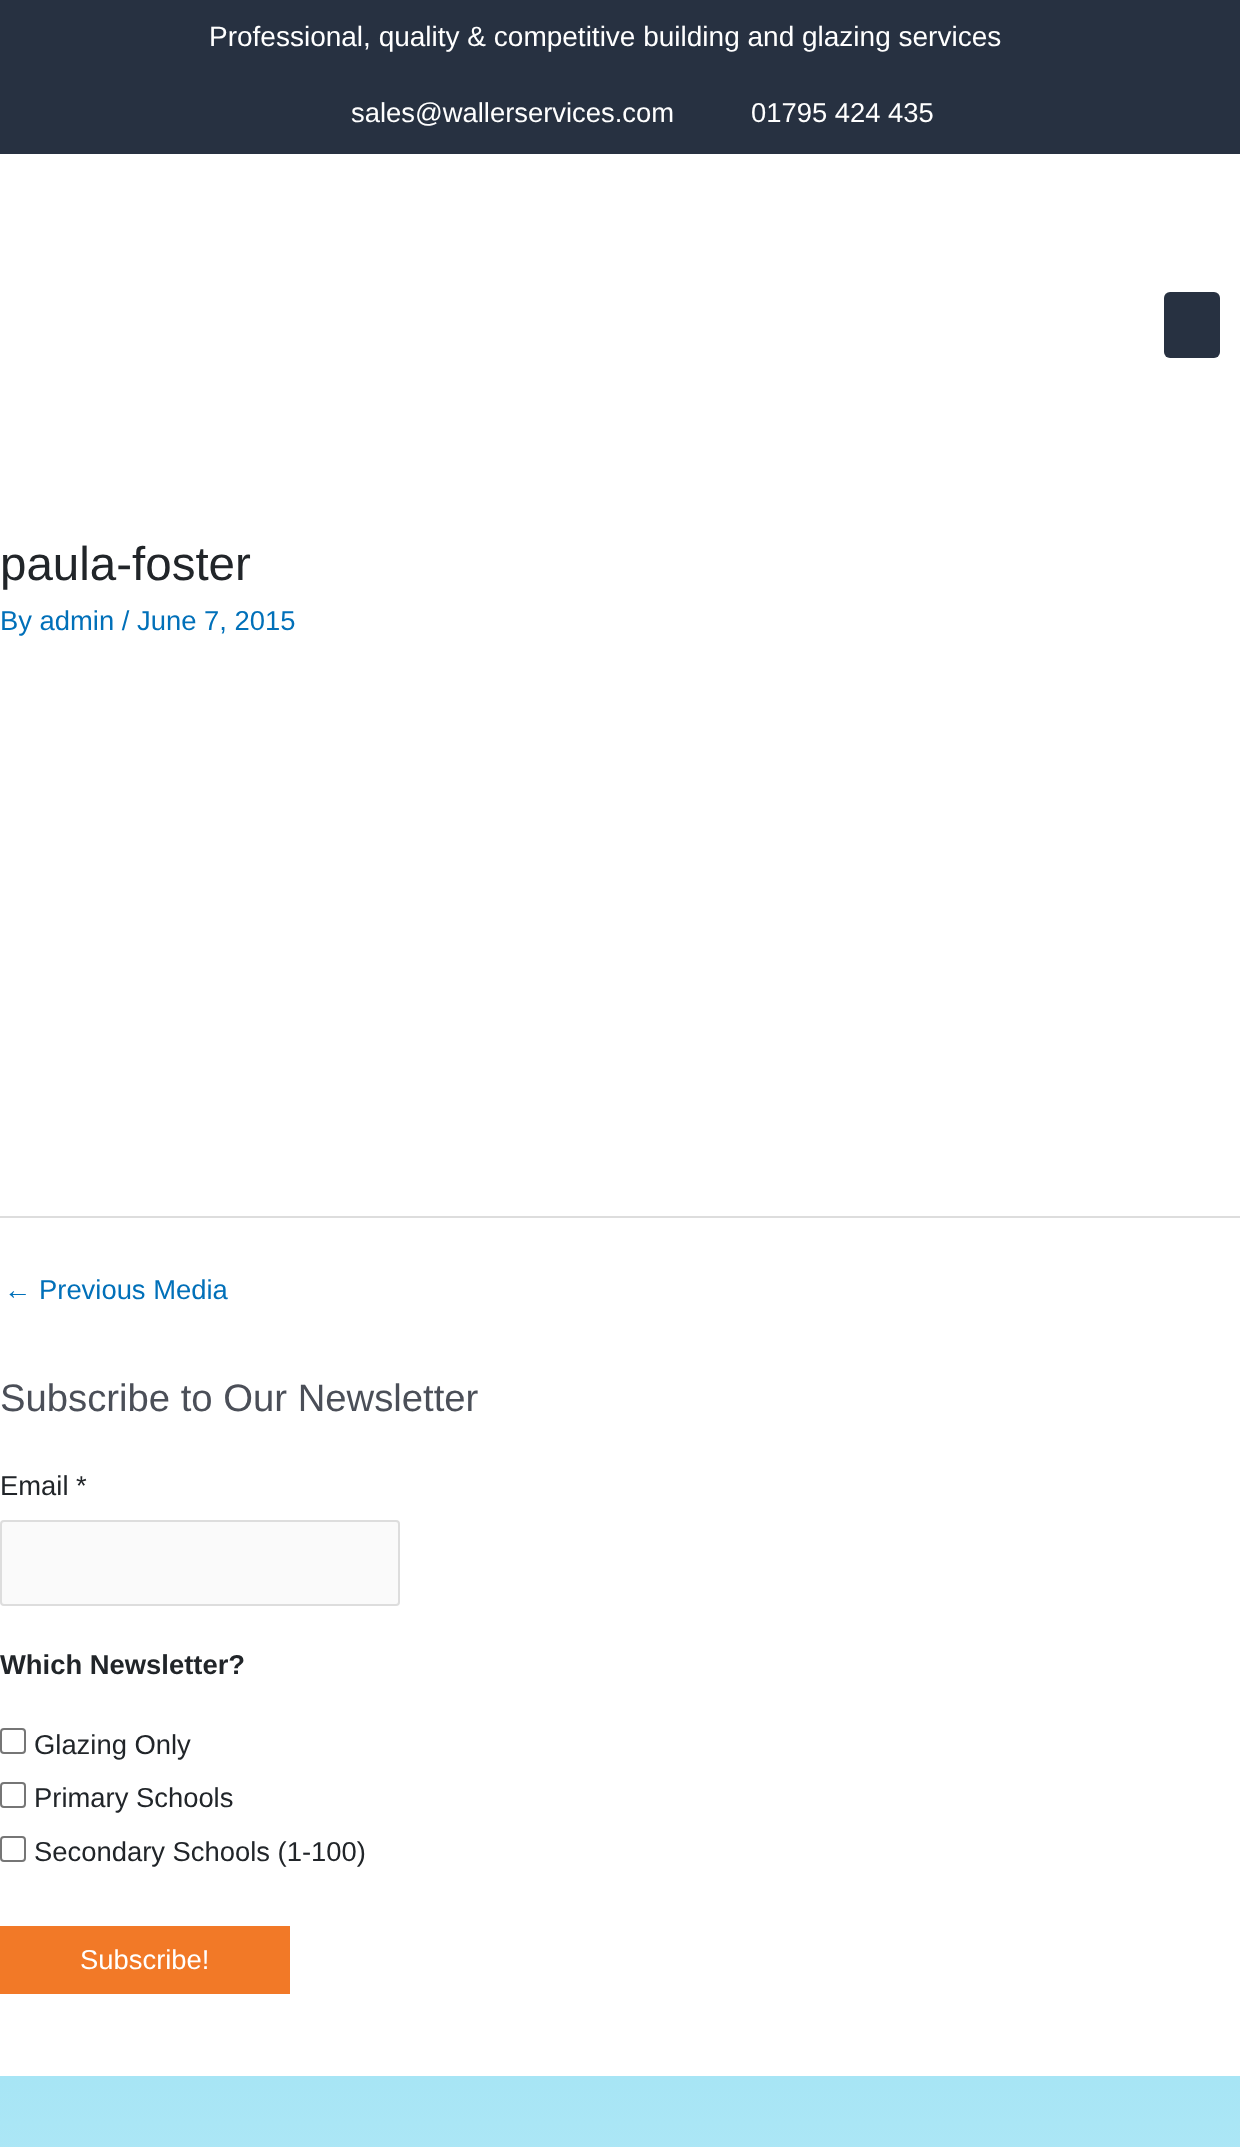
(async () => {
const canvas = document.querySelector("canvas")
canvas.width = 1240
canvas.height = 2147
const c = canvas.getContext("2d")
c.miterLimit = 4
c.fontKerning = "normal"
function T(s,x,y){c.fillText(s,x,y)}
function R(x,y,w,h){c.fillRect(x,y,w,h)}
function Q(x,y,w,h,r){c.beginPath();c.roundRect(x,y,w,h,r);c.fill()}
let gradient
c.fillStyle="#fff"
R(0,0,1240,2147)
c.fillStyle="#273141"
R(0,0,1240,154)
c.font="28px Liberation Sans"
c.fillStyle="#fff"
T("Professional, quality & competitive building and glazing services",209,46)
c.font="27.4px Liberation Sans"
T("sales@wallerservices.com",351,122)
T("01795 424 435",751,122)
c.fillStyle="#273141"
Q(1164,292,56,66,6)
c.font="47.5px Liberation Sans"
c.fillStyle="#212529"
T("paula-foster",0,580)
c.font="27.4px Liberation Sans"
c.fillStyle="#0170b9"
T("By admin / June 7, 2015",0,630)
c.fillStyle="#ddd"
R(0,1216,1240,2)
c.fillStyle="#0170b9"
T("← Previous Media",4,1299)
c.font="38.25px Liberation Sans"
c.fillStyle="#4b4f58"
T("Subscribe to Our Newsletter",0,1411)
c.font="27.4px Liberation Sans"
c.fillStyle="#212529"
T("Email *",0,1495)
c.fillStyle="#fafafa"
c.beginPath()
c.roundRect(1,1521,398,84,3)
c.fill()
c.strokeStyle="#ddd"
c.lineWidth=2
c.stroke()
c.font="bold 27.4px Liberation Sans"
c.fillStyle="#212529"
T("Which Newsletter?",0,1674)
c.beginPath()
c.roundRect(1,1729,24,24,3)
c.strokeStyle="#767676"
c.stroke()
c.font="27.4px Liberation Sans"
T("Glazing Only",34,1754)
c.beginPath()
c.roundRect(1,1783,24,24,3)
c.stroke()
T("Primary Schools",34,1807)
c.beginPath()
c.roundRect(1,1837,24,24,3)
c.stroke()
T("Secondary Schools (1-100)",34,1861)
c.fillStyle="#f27927"
R(0,1926,290,68)
c.fillStyle="#fff"
T("Subscribe!",80,1969)
gradient = c.createLinearGradient(620,2076,620,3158)
gradient.addColorStop(0,"#a7e5f5")
gradient.addColorStop(.86,"#e3f9ff")
c.fillStyle = gradient
R(0,2076,1240,71)
})()
